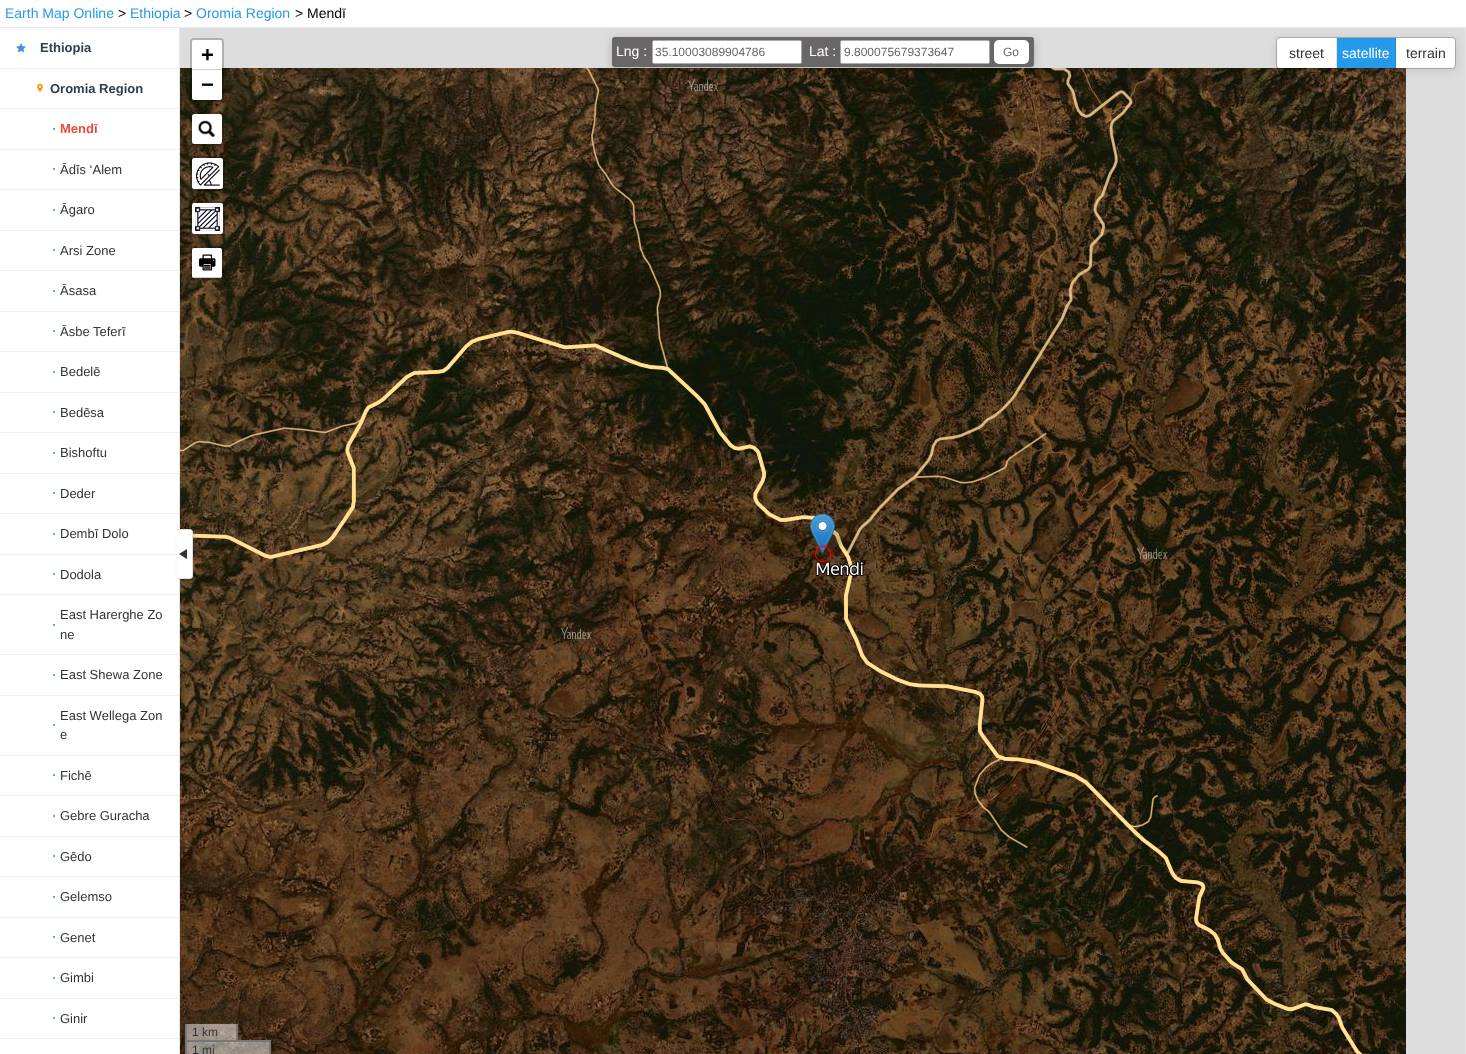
(async () => {
const canvas = document.querySelector("canvas")
canvas.width = 1466
canvas.height = 1054
const c = canvas.getContext("2d")
c.miterLimit = 4
c.fontKerning = "normal"
function T(s,x,y){c.fillText(s,x,y)}
function R(x,y,w,h){c.fillRect(x,y,w,h)}
function Q(x,y,w,h,r){c.beginPath();c.roundRect(x,y,w,h,r);c.fill()}
async function I(src,x,y,w,h){const img=new Image();img.src=src;await img.decode();c.drawImage(img,x,y,w,h)}
let path
c.fillStyle="#fff"
R(0,0,1466,1054)
c.font="14px Liberation Sans"
c.fillStyle="#269aea"
T("Earth Map Online",5,18)
c.fillStyle="#000"
T(">",118,18)
c.fillStyle="#269aea"
T("Ethiopia",130,18)
c.fillStyle="#000"
T(">",184,18)
c.fillStyle="#269aea"
T("Oromia Region",196,18)
c.fillStyle="#000"
T("> Mendī",295,18)
c.fillStyle="#e6e6e6"
R(0,27,179,1)
c.fillStyle="#f0f0f0"
R(0,68,179,1)
await I("1.png",16,43,10,10)
c.font="bold 13px Liberation Sans"
c.fillStyle="#2c3e50"
T("Ethiopia",40,52)
c.fillStyle="#f0f0f0"
R(0,108,179,1)
await I("2.png",37,83,6,9)
c.fillStyle="#2c3e50"
T("Oromia Region",50,93)
c.fillStyle="#f0f0f0"
R(0,149,179,1)
c.fillStyle="#27ae60"
c.beginPath()
c.arc(54,129,1,0,7)
c.fill()
c.fillStyle="#e74c3c"
T("Mendī",60,133)
c.fillStyle="#f0f0f0"
R(0,189,179,1)
c.fillStyle="#27ae60"
c.beginPath()
c.arc(54,169,1,0,7)
c.fill()
c.font="13px Liberation Sans"
c.fillStyle="#333"
T("Ādīs ‘Alem",60,174)
c.fillStyle="#f0f0f0"
R(0,230,179,1)
c.fillStyle="#27ae60"
c.beginPath()
c.arc(54,210,1,0,7)
c.fill()
c.fillStyle="#333"
T("Āgaro",60,214)
c.fillStyle="#f0f0f0"
R(0,270,179,1)
c.fillStyle="#27ae60"
c.beginPath()
c.arc(54,250,1,0,7)
c.fill()
c.fillStyle="#333"
T("Arsi Zone",60,255)
c.fillStyle="#f0f0f0"
R(0,311,179,1)
c.fillStyle="#27ae60"
c.beginPath()
c.arc(54,291,1,0,7)
c.fill()
c.fillStyle="#333"
T("Āsasa",60,295)
c.fillStyle="#f0f0f0"
R(0,351,179,1)
c.fillStyle="#27ae60"
c.beginPath()
c.arc(54,331,1,0,7)
c.fill()
c.fillStyle="#333"
T("Āsbe Teferī",60,336)
c.fillStyle="#f0f0f0"
R(0,392,179,1)
c.fillStyle="#27ae60"
c.beginPath()
c.arc(54,372,1,0,7)
c.fill()
c.fillStyle="#333"
T("Bedelē",60,376)
c.fillStyle="#f0f0f0"
R(0,432,179,1)
c.fillStyle="#27ae60"
c.beginPath()
c.arc(54,412,1,0,7)
c.fill()
c.fillStyle="#333"
T("Bedēsa",60,417)
c.fillStyle="#f0f0f0"
R(0,473,179,1)
c.fillStyle="#27ae60"
c.beginPath()
c.arc(54,453,1,0,7)
c.fill()
c.fillStyle="#333"
T("Bishoftu",60,457)
c.fillStyle="#f0f0f0"
R(0,513,179,1)
c.fillStyle="#27ae60"
c.beginPath()
c.arc(54,493,1,0,7)
c.fill()
c.fillStyle="#333"
T("Deder",60,498)
c.fillStyle="#f0f0f0"
R(0,554,179,1)
c.fillStyle="#27ae60"
c.beginPath()
c.arc(54,534,1,0,7)
c.fill()
c.fillStyle="#333"
T("Dembī Dolo",60,538)
c.fillStyle="#f0f0f0"
R(0,594,179,1)
c.fillStyle="#27ae60"
c.beginPath()
c.arc(54,574,1,0,7)
c.fill()
c.fillStyle="#333"
T("Dodola",60,579)
c.fillStyle="#f0f0f0"
R(0,654,179,1)
c.fillStyle="#27ae60"
c.beginPath()
c.arc(54,625,1,0,7)
c.fill()
c.fillStyle="#333"
T("East Harerghe Zo",60,619)
T("ne",60,639)
c.fillStyle="#f0f0f0"
R(0,695,179,1)
c.fillStyle="#27ae60"
c.beginPath()
c.arc(54,675,1,0,7)
c.fill()
c.fillStyle="#333"
T("East Shewa Zone",60,679)
c.fillStyle="#f0f0f0"
R(0,755,179,1)
c.fillStyle="#27ae60"
c.beginPath()
c.arc(54,725,1,0,7)
c.fill()
c.fillStyle="#333"
T("East Wellega Zon",60,720)
T("e",60,739)
c.fillStyle="#f0f0f0"
R(0,795,179,1)
c.fillStyle="#27ae60"
c.beginPath()
c.arc(54,775,1,0,7)
c.fill()
c.fillStyle="#333"
T("Fichē",60,780)
c.fillStyle="#f0f0f0"
R(0,836,179,1)
c.fillStyle="#27ae60"
c.beginPath()
c.arc(54,816,1,0,7)
c.fill()
c.fillStyle="#333"
T("Gebre Guracha",60,820)
c.fillStyle="#f0f0f0"
R(0,876,179,1)
c.fillStyle="#27ae60"
c.beginPath()
c.arc(54,856,1,0,7)
c.fill()
c.fillStyle="#333"
T("Gēdo",60,861)
c.fillStyle="#f0f0f0"
R(0,917,179,1)
c.fillStyle="#27ae60"
c.beginPath()
c.arc(54,897,1,0,7)
c.fill()
c.fillStyle="#333"
T("Gelemso",60,901)
c.fillStyle="#f0f0f0"
R(0,957,179,1)
c.fillStyle="#27ae60"
c.beginPath()
c.arc(54,937,1,0,7)
c.fill()
c.fillStyle="#333"
T("Genet",60,942)
c.fillStyle="#f0f0f0"
R(0,998,179,1)
c.fillStyle="#27ae60"
c.beginPath()
c.arc(54,978,1,0,7)
c.fill()
c.fillStyle="#333"
T("Gimbi",60,982)
c.fillStyle="#f0f0f0"
R(0,1038,179,1)
c.fillStyle="#27ae60"
c.beginPath()
c.arc(54,1018,1,0,7)
c.fill()
c.fillStyle="#333"
T("Ginir",60,1023)
c.fillStyle="#ddd"
c.beginPath()
c.rect(179.5,27.5,1286,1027)
c.fill()
c.strokeStyle="#e6e6e6"
c.stroke()
await I("11.png",180,324,202,256)
await I("16.png",180,580,202,256)
await I("32.png",180,397,202,162)
c.fillStyle="#0000001a"
c.filter="blur(2.5px)"
c.beginPath()
c.roundRect(179,531,16,50,4)
c.fill()
c.filter="none"
c.fillStyle="#fff"
c.beginPath()
c.roundRect(177,529,16,50,[0,4,4,0])
c.fill()
c.fillStyle="#ddd"
path = new Path2D("M177 529h12c2 0 4 2 4 4v42c0 2-2 4-4 4h-12zm0 1h12c2 0 3 1 3 3v42c0 2-1 3-3 3h-12z")
c.fill(path,"evenodd")
c.fillStyle="#333"
path = new Path2D("M187 549v10l-8-5z")
c.fill(path)
await I("6.png",180,68,202,256)
c.beginPath()
c.roundRect(191,39,32,62,3)
c.strokeStyle="#00000033"
c.lineWidth=2
c.stroke()
c.fillStyle="#fff"
c.beginPath()
c.roundRect(192,40,30,30,[2,2,0,0])
c.fill()
c.fillStyle="#ccc"
R(192,69,30,1)
c.font="bold 22px Liberation Sans"
c.fillStyle="#000"
T("+",201,62)
c.fillStyle="#fff"
c.beginPath()
c.roundRect(192,70,30,30,[0,0,2,2])
c.fill()
c.fillStyle="#000"
T("−",201,92)
c.fillStyle="#ffffffcc"
Q(192,114,30,30,2)
c.beginPath()
c.roundRect(191,113,32,32,3)
c.stroke()
c.fillStyle="#fff"
Q(192,114,30,30,4)
await I("3.png",198,120,17,17)
Q(192,158,31,31,2)
await I("4.png",196,162,24,24)
c.beginPath()
c.roundRect(191,157,33,33,3)
c.stroke()
Q(192,203,31,31,2)
await I("5.png",195,207,25,24)
c.beginPath()
c.roundRect(191,202,33,33,3)
c.stroke()
Q(192,248,30,30,2)
c.beginPath()
c.roundRect(191,247,32,32,3)
c.stroke()
Q(192,248,30,30,4)
c.fillStyle="#ccc"
R(194,277,26,1)
c.font="bold 19px 'Noto Sans Symbols 2'"
c.fillStyle="#000"
T("🖶",198,269)
await I("21.png",180,836,202,218)
c.fillStyle="#ffffff80"
R(187,1024,49,16)
c.fillStyle="#777"
R(236,1024,2,18)
R(185,1024,2,18)
c.font="12px Liberation Sans"
c.fillStyle="#333"
T("1 km",192,1036)
c.fillStyle="#ffffff80"
R(187,1042,82,12)
c.fillStyle="#777"
R(185,1040,86,2)
R(269,1040,2,14)
R(185,1040,2,14)
c.fillStyle="#333"
T("1 mi",192,1054)
await I("7.png",382,68,256,256)
await I("8.png",638,68,256,256)
await I("9.png",894,68,256,256)
await I("10.png",1150,68,256,256)
await I("12.png",382,324,256,256)
await I("13.png",638,324,256,256)
await I("14.png",894,324,256,256)
await I("15.png",1150,324,256,256)
await I("17.png",382,580,256,256)
await I("18.png",638,580,256,256)
await I("19.png",894,580,256,256)
await I("20.png",1150,580,256,256)
await I("22.png",382,836,256,218)
await I("23.png",638,836,256,218)
await I("24.png",894,836,256,218)
await I("25.png",1150,836,256,218)
await I("26.png",586,68,52,171)
await I("27.png",638,230,24,94)
await I("28.png",1050,68,83,256)
await I("29.png",382,329,256,74)
await I("30.png",638,324,256,256)
await I("31.png",894,324,167,172)
await I("33.png",844,580,50,100)
await I("34.png",894,675,256,161)
await I("35.png",1150,794,8,27)
await I("36.png",1006,836,144,13)
await I("37.png",1150,842,213,212)
await I("39.png",820,526,26,28)
await I("38.png",810,513,25,41)
c.save()
path = new Path2D("M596 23h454v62h-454zm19 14h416c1.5 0 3 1.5 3 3v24c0 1.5-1.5 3-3 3h-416c-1.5 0-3-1.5-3-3v-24c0-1.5 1.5-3 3-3z")
c.clip(path,"evenodd")
c.fillStyle="#00000033"
c.filter="blur(5px)"
c.beginPath()
c.roundRect(612,39,422,30,3)
c.fill()
c.filter="none"
c.restore()
c.fillStyle="#555154d9"
Q(612,37,422,30,3)
c.font="14px Liberation Sans"
c.fillStyle="#fff"
T("Lng :",616,56)
c.beginPath()
c.roundRect(652.5,40.5,149,23,1.5)
c.fill()
c.strokeStyle="#afaaaa"
c.lineWidth=1
c.stroke()
c.font="12px Liberation Sans"
c.fillStyle="#666"
T("35.10003089904786",655,56)
c.font="14px Liberation Sans"
c.fillStyle="#fff"
T("Lat :",809,56)
c.beginPath()
c.roundRect(840.5,40.5,149,23,1.5)
c.fill()
c.stroke()
c.font="12px Liberation Sans"
c.fillStyle="#666"
T("9.800075679373647",844,56)
c.fillStyle="#fff"
Q(994,40,35,24,5)
c.fillStyle="#666"
T("Go",1003,56)
c.fillStyle="#0000001a"
c.filter="blur(5px)"
c.beginPath()
c.roundRect(1276,39,180,32,4)
c.fill()
c.filter="none"
c.fillStyle="#fff"
Q(1277,38,178,30,3)
c.beginPath()
c.roundRect(1276.5,37.5,179,31,3.5)
c.strokeStyle="#00000033"
c.stroke()
c.fillStyle="#e6e6e6"
R(1336,38,1,30)
c.font="14px Liberation Sans"
c.fillStyle="#333"
T("street",1289,58)
c.fillStyle="#269aea"
R(1337,38,58,30)
c.fillStyle="#228bd3"
R(1395,38,1,30)
c.fillStyle="#fff"
T("satellite",1342,58)
c.fillStyle="#333"
T("terrain",1406,58)
c.save()
path = new Path2D("M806 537h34v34h-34zm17 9c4.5 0 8 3.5 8 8c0 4.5-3.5 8-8 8c-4.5 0-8-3.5-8-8c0-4.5 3.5-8 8-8z")
c.clip(path,"evenodd")
c.fillStyle="#ff000080"
c.filter="blur(2.5px)"
c.beginPath()
c.roundRect(815,546,16,16,8)
c.fill()
c.filter="none"
c.restore()
c.beginPath()
c.arc(823,554,7.5,0,7)
c.strokeStyle="#f00"
c.stroke()
})()
